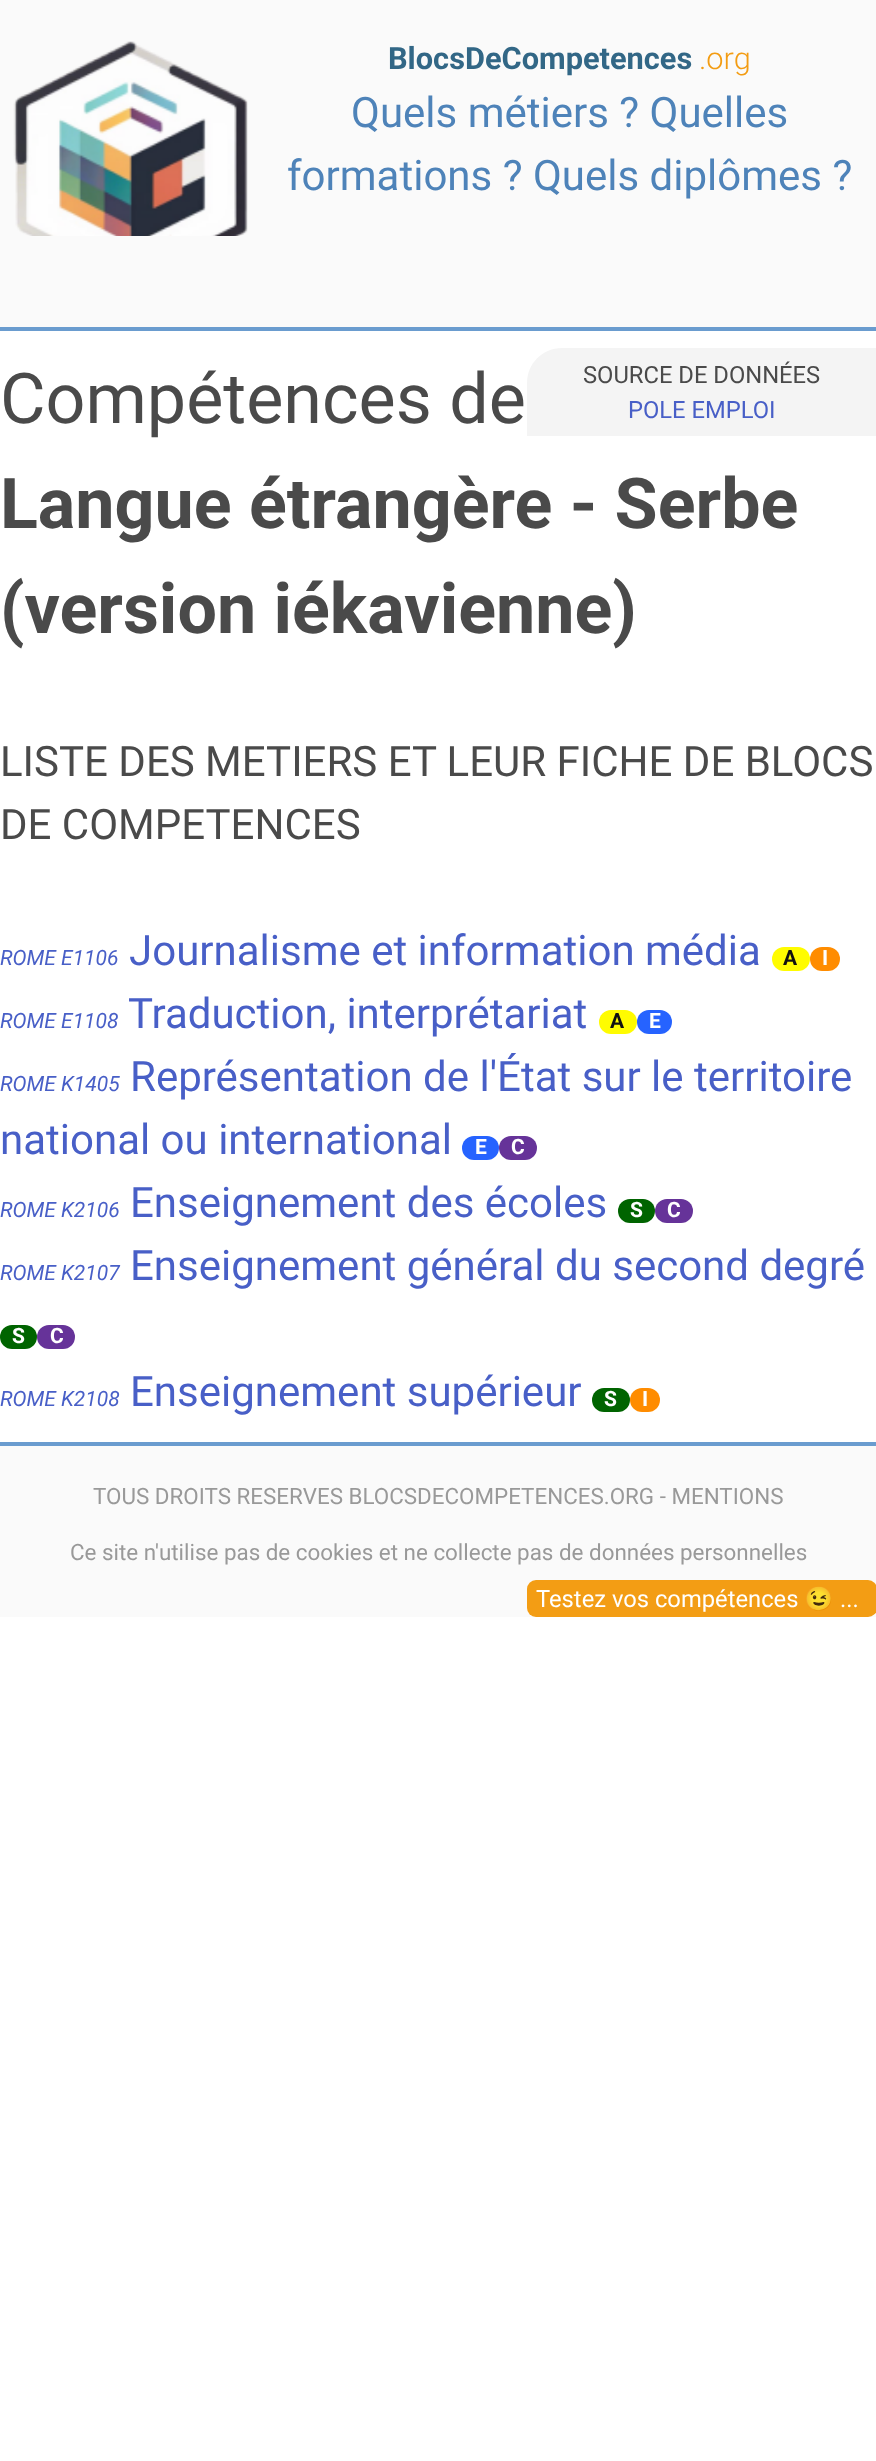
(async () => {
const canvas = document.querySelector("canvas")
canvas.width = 876
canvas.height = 2461
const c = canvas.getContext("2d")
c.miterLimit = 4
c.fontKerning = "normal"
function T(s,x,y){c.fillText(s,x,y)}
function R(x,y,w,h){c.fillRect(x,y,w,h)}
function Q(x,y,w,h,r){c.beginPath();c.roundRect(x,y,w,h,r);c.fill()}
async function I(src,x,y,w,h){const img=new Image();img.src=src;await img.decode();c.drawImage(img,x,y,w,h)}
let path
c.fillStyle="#fff"
R(0,0,876,2461)
c.fillStyle="#fafafa"
R(0,0,876,1617)
c.fillStyle="#6a9ccf"
R(0,327,876,4)
await I("1.png",13,41,235,195)
c.font="bold 30.75px Roboto"
c.fillStyle="#326786"
T("BlocsDeCompetences",388,69)
c.font="300 30.75px Roboto"
c.fillStyle="#f39c12"
T(".org",699,69)
c.font="42px Roboto"
c.fillStyle="#4e83b9"
T("Quels métiers ? Quelles",351,127)
T("formations ? Quels diplômes ?",287,190)
c.fillStyle="#fff"
R(0,331,876,1111)
c.fillStyle="#f4f4f4"
path = new Path2D("M562 348h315v88h-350v-53c0-19.5 15.5-35 35-35z")
c.fill(path)
c.font="23.75px Roboto"
c.fillStyle="#4a4a4a"
T("SOURCE DE DONNÉES",583,383)
c.fillStyle="#485fc7"
T("POLE EMPLOI",628,418)
c.font="70px Roboto"
c.fillStyle="#4a4a4a"
T("Compétences de",0,423)
c.font="bold 70px Roboto"
T("Langue étrangère - Serbe",0,528)
T("(version iékavienne)",0,633)
c.font="42px Roboto"
T("LISTE DES METIERS ET LEUR FICHE DE BLOCS",0,776)
T("DE COMPETENCES",0,839)
c.font="italic 21px Roboto"
c.fillStyle="#485fc7"
T("ROME E1106",0,965)
c.font="42px Roboto"
T("Journalisme et information média",129,965)
c.fillStyle="#fffc00"
Q(772,947,38,24,12)
c.font="bold 21px Roboto"
c.fillStyle="#111"
T("A",783,965)
c.fillStyle="#ff8c00"
Q(810,947,30,24,12)
c.fillStyle="#fff"
T("I",822,965)
c.font="italic 21px Roboto"
c.fillStyle="#485fc7"
T("ROME E1108",0,1028)
c.font="42px Roboto"
T("Traduction, interprétariat",128,1028)
c.fillStyle="#fffc00"
Q(599,1010,38,24,12)
c.font="bold 21px Roboto"
c.fillStyle="#111"
T("A",610,1028)
c.fillStyle="#2663ff"
Q(637,1010,35,24,12)
c.fillStyle="#fff"
T("E",649,1028)
c.font="italic 21px Roboto"
c.fillStyle="#485fc7"
T("ROME K1405",0,1091)
c.font="42px Roboto"
T("Représentation de l'État sur le territoire",130,1091)
T("national ou international",0,1154)
c.fillStyle="#2663ff"
Q(462,1136,37,24,12)
c.font="bold 21px Roboto"
c.fillStyle="#fff"
T("E",475,1154)
c.fillStyle="#639"
Q(499,1136,38,24,12)
c.fillStyle="#fff"
T("C",511,1154)
c.font="italic 21px Roboto"
c.fillStyle="#485fc7"
T("ROME K2106",0,1217)
c.font="42px Roboto"
T("Enseignement des écoles",130,1217)
c.fillStyle="#006400"
Q(618,1199,37,24,12)
c.font="bold 21px Roboto"
c.fillStyle="#fff"
T("S",630,1217)
c.fillStyle="#639"
Q(655,1199,38,24,12)
c.fillStyle="#fff"
T("C",667,1217)
c.font="italic 21px Roboto"
c.fillStyle="#485fc7"
T("ROME K2107",0,1280)
c.font="42px Roboto"
T("Enseignement général du second degré",130,1280)
c.fillStyle="#006400"
Q(0,1325,37,24,12)
c.font="bold 21px Roboto"
c.fillStyle="#fff"
T("S",12,1343)
c.fillStyle="#639"
Q(37,1325,38,24,12)
c.fillStyle="#fff"
T("C",50,1343)
c.font="italic 21px Roboto"
c.fillStyle="#485fc7"
T("ROME K2108",0,1406)
c.font="42px Roboto"
T("Enseignement supérieur",130,1406)
c.fillStyle="#006400"
Q(592,1388,38,24,12)
c.font="bold 21px Roboto"
c.fillStyle="#fff"
T("S",604,1406)
c.fillStyle="#ff8c00"
Q(630,1388,30,24,12)
c.fillStyle="#fff"
T("I",642,1406)
c.fillStyle="#6a9ccf"
R(0,1442,876,4)
c.font="22.4px Roboto"
c.fillStyle="#999"
T("TOUS DROITS RESERVES BLOCSDECOMPETENCES.ORG - MENTIONS",93,1504)
T("Ce site n'utilise pas de cookies et ne collecte pas de données personnelles",70,1560)
c.fillStyle="#f39d14"
Q(527,1580,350,37,9)
c.font="23.75px Roboto"
c.fillStyle="#fff"
T("Testez vos compétences",536,1607)
c.font="23.75px Noto Color Emoji"
T("😉",804,1607)
c.font="23.75px Roboto"
T("...",840,1607)
})()
